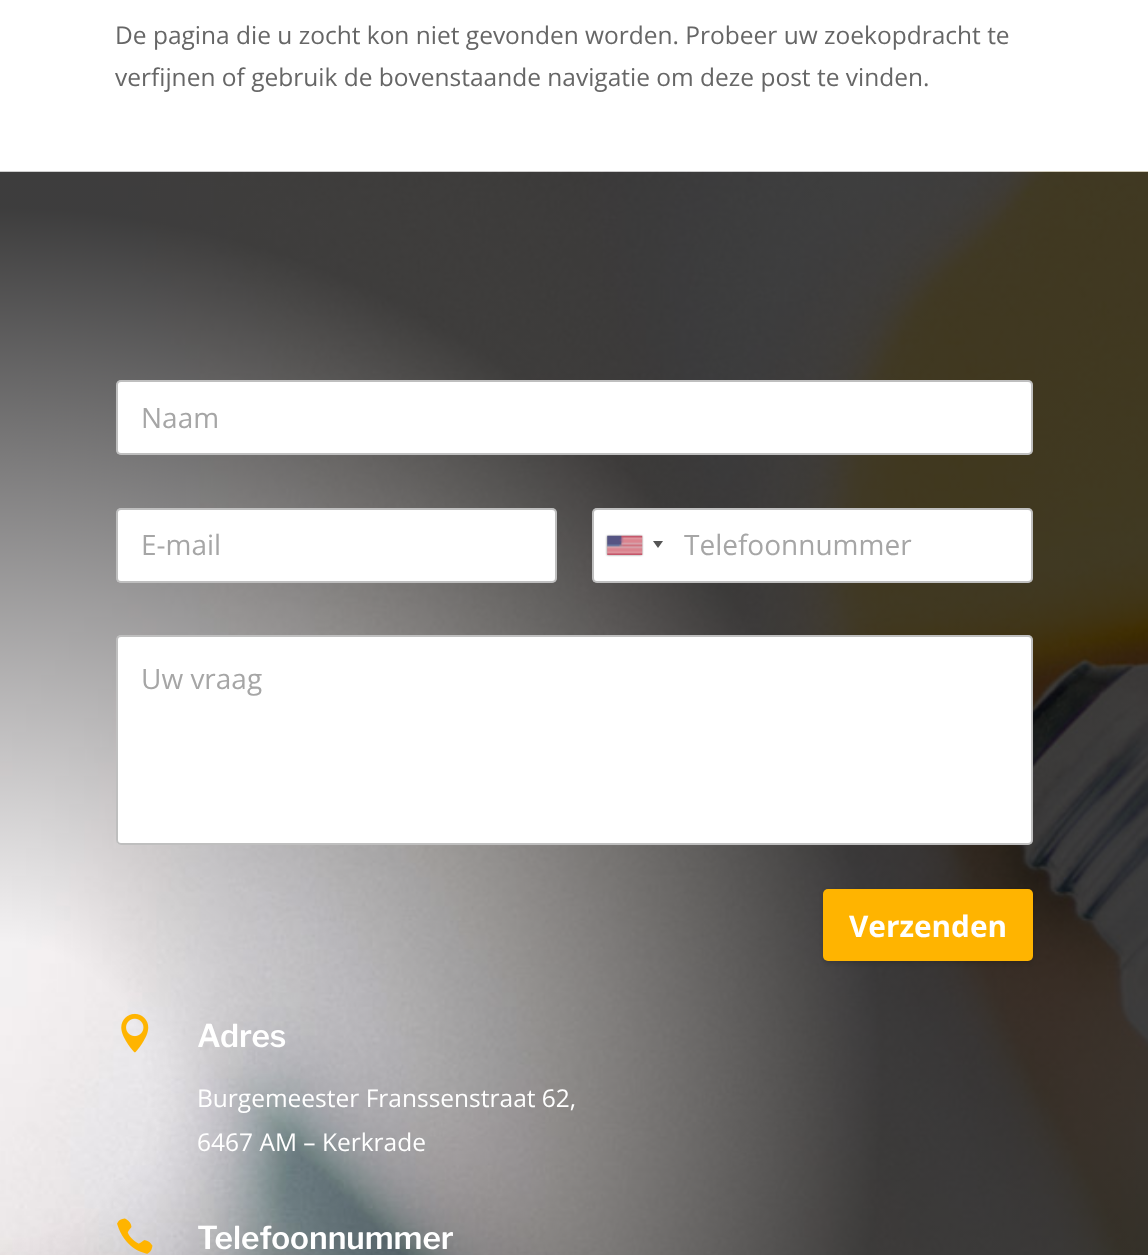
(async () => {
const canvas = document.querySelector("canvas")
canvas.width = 1148
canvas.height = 1255
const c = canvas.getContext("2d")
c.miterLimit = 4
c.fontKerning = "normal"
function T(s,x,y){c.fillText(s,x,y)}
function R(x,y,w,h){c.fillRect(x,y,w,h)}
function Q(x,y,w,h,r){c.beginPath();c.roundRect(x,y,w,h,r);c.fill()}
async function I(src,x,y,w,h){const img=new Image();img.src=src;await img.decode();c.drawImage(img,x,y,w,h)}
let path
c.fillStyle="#fff"
R(0,0,1148,1255)
c.font="24.5px Open Sans"
c.fillStyle="#666"
T("De pagina die u zocht kon niet gevonden worden. Probeer uw zoekopdracht te",115,44)
T("verfijnen of gebruik de bovenstaande navigatie om deze post te vinden.",115,86)
await I("1.png",0,171,1148,1084)
c.fillStyle="#fff"
Q(116,380,917,75,5)
c.beginPath()
c.roundRect(117,381,915,73,4)
c.strokeStyle="#00000040"
c.lineWidth=2
c.stroke()
c.font="28px Open Sans"
c.fillStyle="#a6a6a6"
T("Naam",141,428)
c.fillStyle="#fff"
Q(116,508,441,75,5)
c.beginPath()
c.roundRect(117,509,439,73,4)
c.stroke()
c.fillStyle="#a6a6a6"
T("E-mail",141,555)
c.fillStyle="#fff"
Q(592,508,441,75,5)
c.beginPath()
c.roundRect(593,509,439,73,4)
c.stroke()
c.fillStyle="#888"
c.filter="blur(1px)"
c.beginPath()
c.rect(607,536,35,19)
c.fill()
c.filter="none"
await I("2.png",607,535,36,20)
c.fillStyle="#555"
path = new Path2D("M653 541h10l-5 7z")
c.fill(path)
c.fillStyle="#a6a6a6"
T("Telefoonnummer",684,555)
c.fillStyle="#fff"
Q(116,635,917,210,5)
c.beginPath()
c.roundRect(117,636,915,208,4)
c.stroke()
c.fillStyle="#a6a6a6"
T("Uw vraag",141,689)
c.fillStyle="#00000026"
c.filter="blur(2px)"
c.beginPath()
c.roundRect(823,891,210,72,5)
c.fill()
c.filter="none"
c.fillStyle="#ffb400"
Q(823,889,210,72,5)
c.font="bold 29.75px Open Sans"
c.fillStyle="#fff"
T("Verzenden",849,937)
await I("3.png",121,1013,28,40)
c.font="600 31.5px Libre Franklin"
T("Adres",197,1047)
c.font="24.5px Open Sans"
T("Burgemeester Franssenstraat 62,",197,1107)
T("6467 AM – Kerkrade",197,1151)
await I("4.png",117,1218,36,36)
c.font="600 31.5px Libre Franklin"
T("Telefoonnummer",197,1249)
})()
